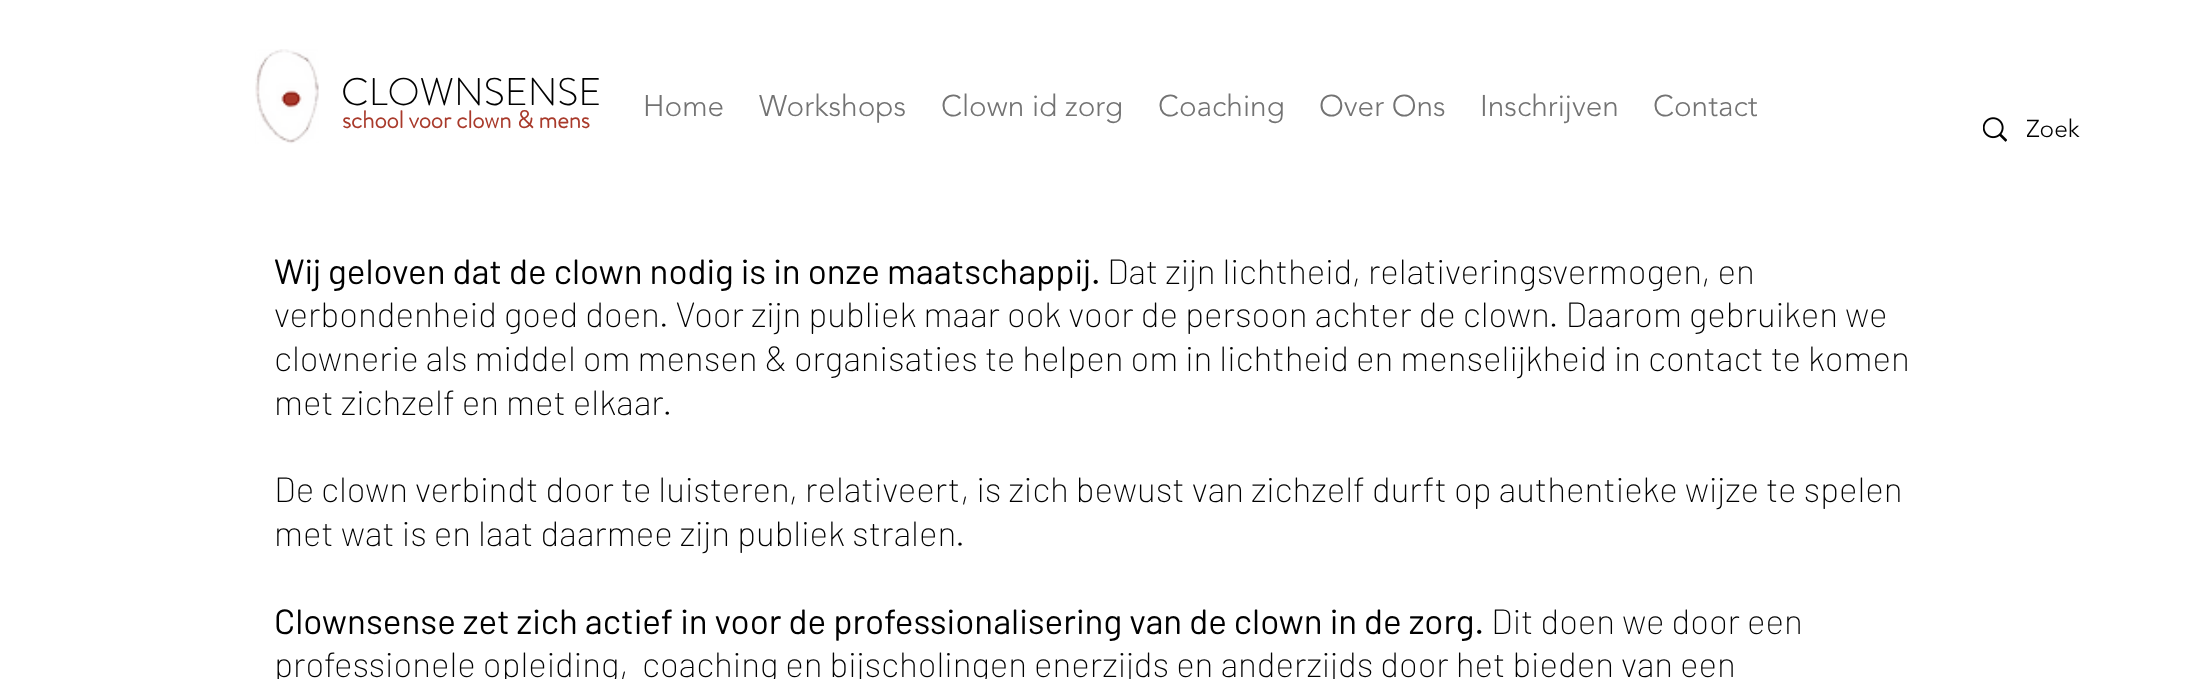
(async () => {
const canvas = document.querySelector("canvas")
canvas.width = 2185
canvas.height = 679
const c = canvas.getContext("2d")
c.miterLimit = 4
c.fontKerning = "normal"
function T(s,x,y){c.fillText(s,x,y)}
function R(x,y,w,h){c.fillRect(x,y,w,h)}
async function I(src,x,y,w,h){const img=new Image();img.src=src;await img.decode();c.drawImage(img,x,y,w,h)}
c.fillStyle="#fff"
R(0,0,2185,679)
await I("1.png",255,49,64,95)
c.font="300 38.5px 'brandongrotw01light'"
c.fillStyle="#000"
T("CLOWNSENSE",341,105)
c.font="bold 24.5px 'brandongrotw01light'"
c.fillStyle="#a93a2b"
T("school voor clown & mens",342,128)
c.font="300 29.75px 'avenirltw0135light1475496'"
c.fillStyle="#737373"
T("Home",643,116)
T("Workshops",759,116)
T("Clown id zorg",941,116)
T("Coaching",1158,116)
T("Over Ons",1319,116)
T("Inschrijven",1480,116)
T("Contact",1653,116)
await I("2.png",1983,117,24,25)
c.save()
c.beginPath()
c.rect(2027,114,141,30)
c.clip()
c.font="300 24.5px 'avenirltw0135light1475496'"
c.fillStyle="#000"
T("Zoek",2026,137)
c.restore()
c.font="35px Barlow"
c.fillStyle="#000"
T("Wij geloven dat de clown nodig is in onze maatschappij.",274,284)
c.font="200 35px Barlow"
T("Dat zijn lichtheid, relativeringsvermogen, en",1107,284)
T("verbondenheid goed doen. Voor zijn publiek maar ook voor de persoon achter de clown. Daarom gebruiken we",274,327)
T("clownerie als middel om mensen & organisaties te helpen om in lichtheid en menselijkheid in contact te komen",274,371)
T("met zichzelf en met elkaar.",274,415)
T("De clown verbindt door te luisteren, relativeert, is zich bewust van zichzelf durft op authentieke wijze te spelen",274,502)
T("met wat is en laat daarmee zijn publiek stralen.",274,546)
c.font="35px Barlow"
T("Clownsense zet zich actief in voor de professionalisering van de clown in de zorg.",274,634)
c.font="200 35px Barlow"
T("Dit doen we door een",1491,634)
T("professionele opleiding,",274,677)
T("coaching en bijscholingen enerzijds en anderzijds door het bieden van een",642,677)
})()
